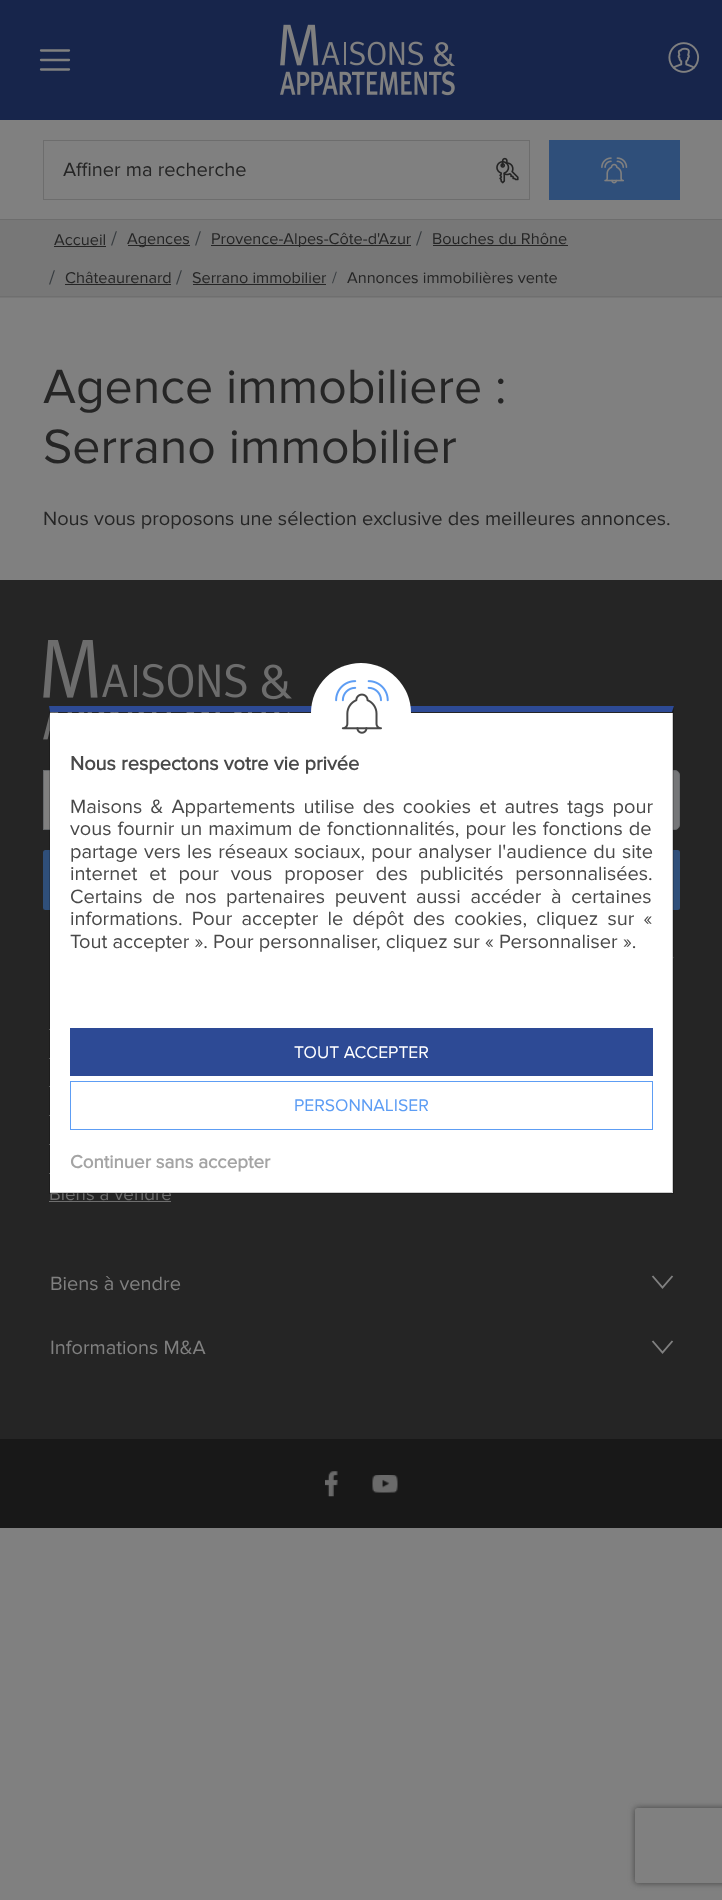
(async () => {
const canvas = document.querySelector("canvas")
canvas.width = 722
canvas.height = 1900
const c = canvas.getContext("2d")
c.miterLimit = 4
c.fontKerning = "normal"
function T(s,x,y){c.fillText(s,x,y)}
function R(x,y,w,h){c.fillRect(x,y,w,h)}
function Q(x,y,w,h,r){c.beginPath();c.roundRect(x,y,w,h,r);c.fill()}
async function I(src,x,y,w,h){const img=new Image();img.src=src;await img.decode();c.drawImage(img,x,y,w,h)}
let path
c.fillStyle="#808080"
R(0,0,722,1900)
c.fillStyle="#17254b"
R(0,0,722,120)
path = new Path2D("M41 50.5h28m-28 9.5h28m-28 9.5h28")
c.strokeStyle="#808080"
c.lineWidth=2.3
c.lineCap="round"
c.stroke(path)
await I("1.png",280,24,175,72)
await I("2.png",668,42,32,31)
c.fillStyle="#6d6d6d"
R(0,219,722,1)
c.strokeStyle="#6d6d6d"
c.lineWidth=1
c.strokeRect(43.5,140.5,486,59)
c.font="20px Proxima Nova"
c.fillStyle="#252525"
T("Affiner ma recherche",63,176)
await I("3.png",496,157,23,27)
c.fillStyle="#2f4f7a"
R(549,140,131,60)
await I("4.png",601,157,27,27)
c.fillStyle="#777"
R(0,220,722,78)
c.fillStyle="#6f6f6f"
R(0,296,722,1)
c.font="16.25px Proxima Nova"
c.fillStyle="#252525"
T("Accueil",54,245)
R(54,246,52,1)
c.font="20px Proxima Nova"
c.fillStyle="#363b3f"
T("/",111,245)
c.fillStyle="#252525"
R(128,245,62,1)
c.font="16.25px Proxima Nova"
T("Agences",127,244)
c.font="20px Proxima Nova"
c.fillStyle="#363b3f"
T("/",195,245)
c.fillStyle="#252525"
R(211,245,200,1)
c.font="16.25px Proxima Nova"
T("Provence-Alpes-Côte-d'Azur",211,244)
c.font="20px Proxima Nova"
c.fillStyle="#363b3f"
T("/",416,245)
c.font="16.25px Proxima Nova"
c.fillStyle="#252525"
T("Bouches du Rhône",432,244)
R(433,245,135,1)
c.font="20px Proxima Nova"
c.fillStyle="#363b3f"
T("/",49,284)
c.font="16.25px Proxima Nova"
c.fillStyle="#252525"
T("Châteaurenard",65,283)
R(65,284,106,1)
c.font="20px Proxima Nova"
c.fillStyle="#363b3f"
T("/",176,284)
c.font="16.25px Proxima Nova"
c.fillStyle="#252525"
T("Serrano immobilier",192,283)
R(193,284,133,1)
c.fillStyle="#363b3f"
T("/",332,283)
c.fillStyle="#252525"
T("Annonces immobilières vente",347,283)
c.font="50px Proxima Nova"
T("Agence immobiliere :",43,403)
T("Serrano immobilier",43,463)
c.font="20px Proxima Nova"
T("Nous vous proposons une sélection exclusive des meilleures annonces.",43,525)
R(0,580,722,859)
await I("6.png",43,640,249,100)
c.fillStyle="#808080"
R(44,771,6,58)
c.fillStyle="#757678"
c.beginPath()
c.roundRect(610.5,770.5,69,59,[0,4.5,4.5,0])
c.fill()
c.strokeStyle="#676a6d"
c.stroke()
c.strokeRect(43.5,770.5,567,59)
c.fillStyle="#2f4f7a"
Q(43,850,637,60,2.5)
path = new Path2D("M652.5 957.5l10-11.5l10 11.5")
c.strokeStyle="#808080"
c.lineWidth=1.9
c.lineJoin="round"
c.stroke(path)
c.font="18.75px Proxima Nova"
c.fillStyle="#6e6e6e"
T("Biens à vendre",49,1200)
c.fillStyle="#fff"
R(50,713,623,480)
c.fillStyle="#2d4a95"
path = new Path2D("M49 706h625l-2 6h-622z")
c.fill(path)
c.fillStyle="#00000033"
path = new Path2D("M674 706v488l-2-2v-480z")
c.fill(path)
path = new Path2D("M674 1194h-625l1-2h622z")
c.fill(path)
c.fillStyle="#6e6e6e"
R(49,1029,1,1)
R(49,1058,1,1)
R(49,1086,1,1)
R(49,1115,1,1)
R(49,1144,1,1)
R(49,1173,1,1)
c.fillStyle="#00000033"
path = new Path2D("M49 1194v-488l1 6v480z")
c.fill(path)
c.fillStyle="#fff"
c.beginPath()
c.arc(361,713,50,0,7)
c.fill()
await I("5.png",335,680,54,54)
c.font="bold 20px Proxima Nova"
c.fillStyle="#494949"
T("Nous respectons votre vie privée",70,770)
c.wordSpacing="3px"
c.font="20px Proxima Nova"
T("Maisons & Appartements utilise des cookies et autres tags pour",70,813)
c.wordSpacing="0.75px"
T("vous fournir un maximum de fonctionnalités, pour les fonctions de",70,835)
c.wordSpacing="1px"
T("partage vers les réseaux sociaux, pour analyser l'audience du site",70,858)
c.wordSpacing="6.75px"
T("internet et pour vous proposer des publicités personnalisées.",70,880)
c.wordSpacing="4.5px"
T("Certains de nos partenaires peuvent aussi accéder à certaines",70,903)
c.wordSpacing="4px"
T("informations. Pour accepter le dépôt des cookies, cliquez sur «",70,925)
c.wordSpacing="0px"
T("Tout accepter ». Pour personnaliser, cliquez sur « Personnaliser ».",70,948)
c.fillStyle="#2d4a95"
R(70,1028,583,48)
c.font="17.5px Proxima Nova"
c.fillStyle="#fff"
T("TOUT ACCEPTER",294,1058)
c.strokeStyle="#5d9df4"
c.lineWidth=1
c.lineJoin="miter"
c.strokeRect(70.5,1081.5,582,48)
c.fillStyle="#5d9df4"
T("PERSONNALISER",294,1111)
c.font="bold 18.75px Proxima Nova"
c.fillStyle="#a4a4a4"
T("Continuer sans accepter",70,1168)
c.fillStyle="#6e6e6e"
R(49,1201,122,1)
c.font="20px Proxima Nova"
c.fillStyle="#808080"
T("Biens à vendre",50,1290)
path = new Path2D("M652.5 1276l10 11.5l10-11.5")
c.strokeStyle="#808080"
c.lineWidth=1.9
c.lineCap="butt"
c.stroke(path)
T("Informations M&A",50,1354)
path = new Path2D("M652.5 1341l10 11.5l10-11.5")
c.stroke(path)
c.fillStyle="#181818"
R(0,1439,722,89)
await I("7.png",325,1471,13,26)
await I("8.png",372,1475,26,18)
c.save()
path = new Path2D("M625 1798h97v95h-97zm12.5 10h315c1.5 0 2.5 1 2.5 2.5v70c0 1.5-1 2.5-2.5 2.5h-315c-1.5 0-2.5-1-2.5-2.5v-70c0-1.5 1-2.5 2.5-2.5z")
c.clip(path,"evenodd")
c.fillStyle="#404040"
c.filter="blur(3px)"
c.beginPath()
c.roundRect(635,1808,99,75,2.5)
c.fill()
c.filter="none"
c.restore()
})()
